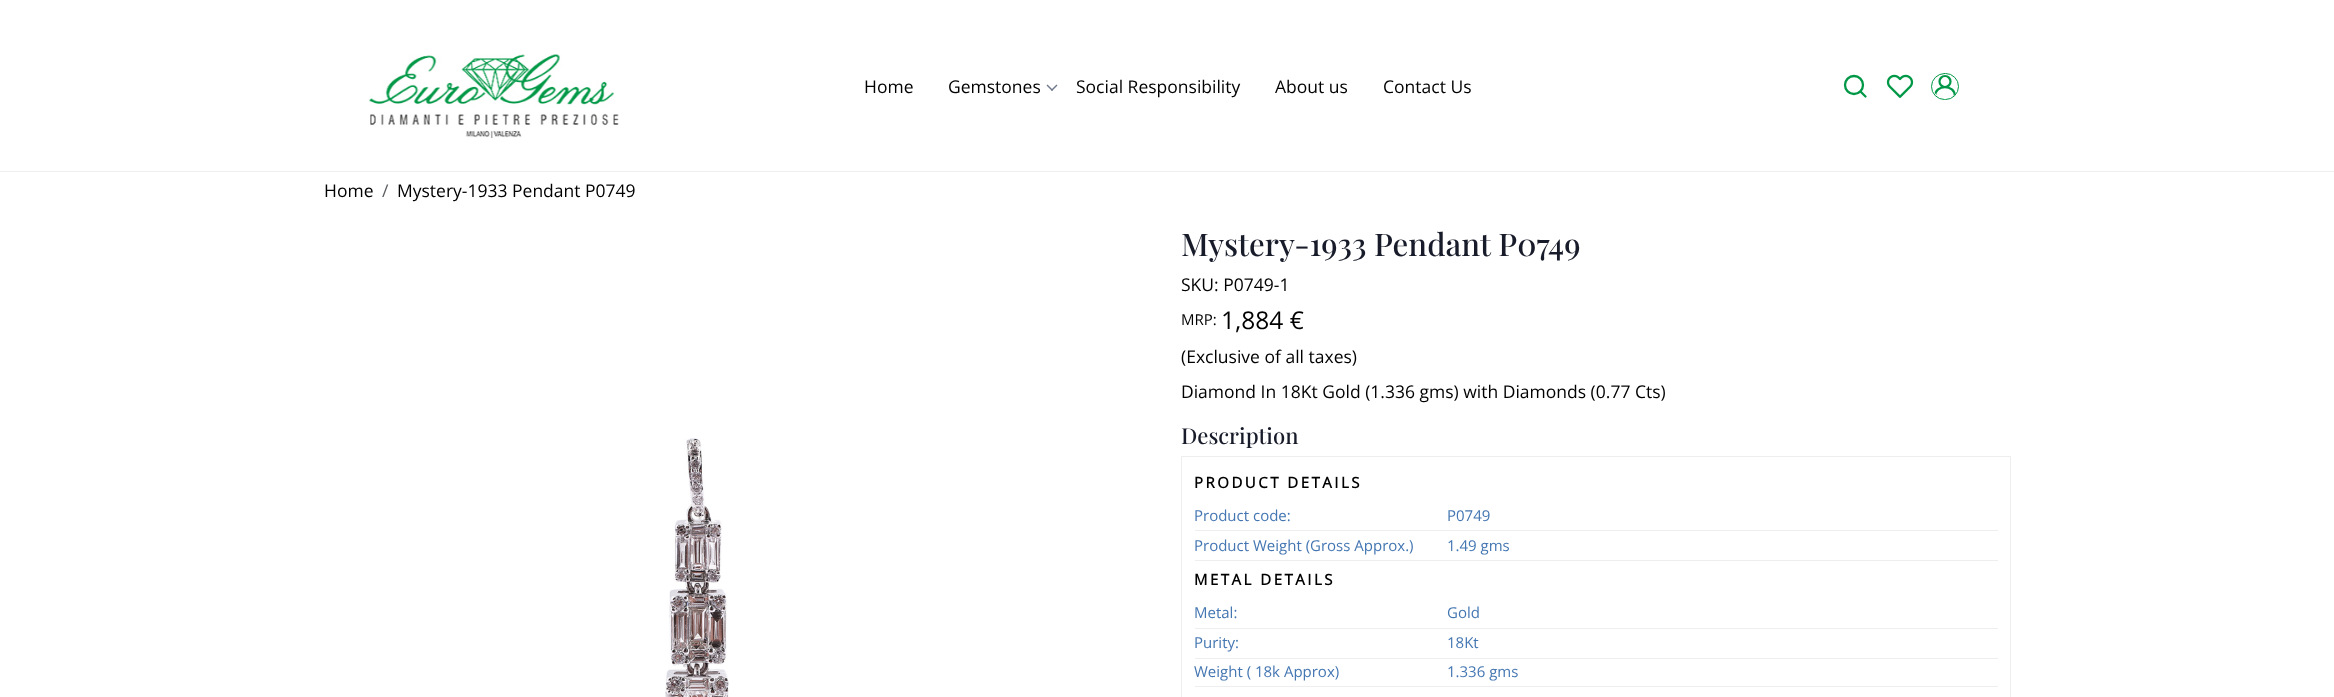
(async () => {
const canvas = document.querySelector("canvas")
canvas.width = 2334
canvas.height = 697
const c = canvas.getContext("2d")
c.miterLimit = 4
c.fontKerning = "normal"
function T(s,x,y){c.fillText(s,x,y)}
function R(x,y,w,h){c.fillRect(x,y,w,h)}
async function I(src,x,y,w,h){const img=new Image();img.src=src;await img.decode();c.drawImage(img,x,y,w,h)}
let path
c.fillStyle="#fff"
R(0,0,2334,697)
c.fillStyle="#eee"
R(0,171,2334,1)
await I("1.png",369,54,250,84)
c.font="17.5px Open Sans"
c.fillStyle="#000"
T("Home",864,93)
T("Gemstones",948,93)
c.fillStyle="#70798b"
path = new Path2D("M1056.5 84.5l1 1l-5.5 5.5l-1-1z")
c.fill(path)
path = new Path2D("M1047.5 84.5l5.5 5.5l-1 1l-5.5-5.5z")
c.fill(path)
c.fillStyle="#000"
T("Social Responsibility",1076,93)
T("About us",1275,93)
T("Contact Us",1383,93)
c.beginPath()
c.arc(1854,85,9,0,7)
c.strokeStyle="#009846"
c.lineWidth=2.3
c.stroke()
path = new Path2D("M1865.5 96.5l-5-5")
c.lineCap="round"
c.lineJoin="round"
c.stroke(path)
await I("2.png",1886,74,28,24)
c.beginPath()
c.roundRect(1931.5,73.5,27,26,13)
c.lineWidth=1
c.lineJoin="miter"
c.stroke()
c.save()
c.beginPath()
c.roundRect(1933,74,25,25,12.5)
c.clip()
path = new Path2D("M1935 96.5c0-12.5 20-12.5 20 0")
c.lineWidth=2.2
c.lineCap="square"
c.stroke(path)
c.restore()
c.beginPath()
c.arc(1945,81.5,5.5,0,7)
c.lineWidth=2.2
c.stroke()
T("Home",324,197)
c.fillStyle="#595c5f"
T("/",382,197)
c.fillStyle="#000"
T("Mystery-1933 Pendant P0749",397,197)
await I("3.png",665,438,64,259)
c.font="500 31.25px Playfair Display"
c.fillStyle="#181c2a"
T("Mystery-1933 Pendant P0749",1181,256)
c.font="17.5px Open Sans"
c.fillStyle="#000"
T("SKU: P0749-1",1181,291)
c.font="15px Open Sans"
T("MRP:",1181,325)
c.font="24.5px Open Sans"
T("1,884 €",1221,329)
c.font="17.5px Open Sans"
T("(Exclusive of all taxes)",1181,363)
T("Diamond In 18Kt Gold (1.336 gms) with Diamonds (0.77 Cts)",1181,398)
c.font="500 22px Playfair Display"
c.fillStyle="#181c2a"
T("Description",1181,444)
c.strokeStyle="#eee"
c.lineWidth=1
c.strokeRect(1181.5,456.5,829,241)
c.letterSpacing="2.5px"
c.font="bold 15px Open Sans"
c.fillStyle="#000"
T("PRODUCT DETAILS",1194,488)
c.fillStyle="#eee"
R(1195,530,803,1)
c.letterSpacing="0px"
c.font="15px Open Sans"
c.fillStyle="#4476b2"
T("Product code:",1194,521)
T("P0749",1447,521)
c.fillStyle="#eee"
R(1195,560,803,1)
c.fillStyle="#4476b2"
T("Product Weight (Gross Approx.)",1194,551)
T("1.49 gms",1447,551)
c.letterSpacing="2.5px"
c.font="bold 15px Open Sans"
c.fillStyle="#000"
T("METAL DETAILS",1194,585)
c.fillStyle="#eee"
R(1195,628,803,1)
c.letterSpacing="0px"
c.font="15px Open Sans"
c.fillStyle="#4476b2"
T("Metal:",1194,618)
T("Gold",1447,618)
c.fillStyle="#eee"
R(1195,658,803,1)
c.fillStyle="#4476b2"
T("Purity:",1194,648)
T("18Kt",1447,648)
c.fillStyle="#eee"
R(1195,686,803,1)
c.fillStyle="#4476b2"
T("Weight ( 18k Approx)",1194,677)
T("1.336 gms",1447,677)
})()
